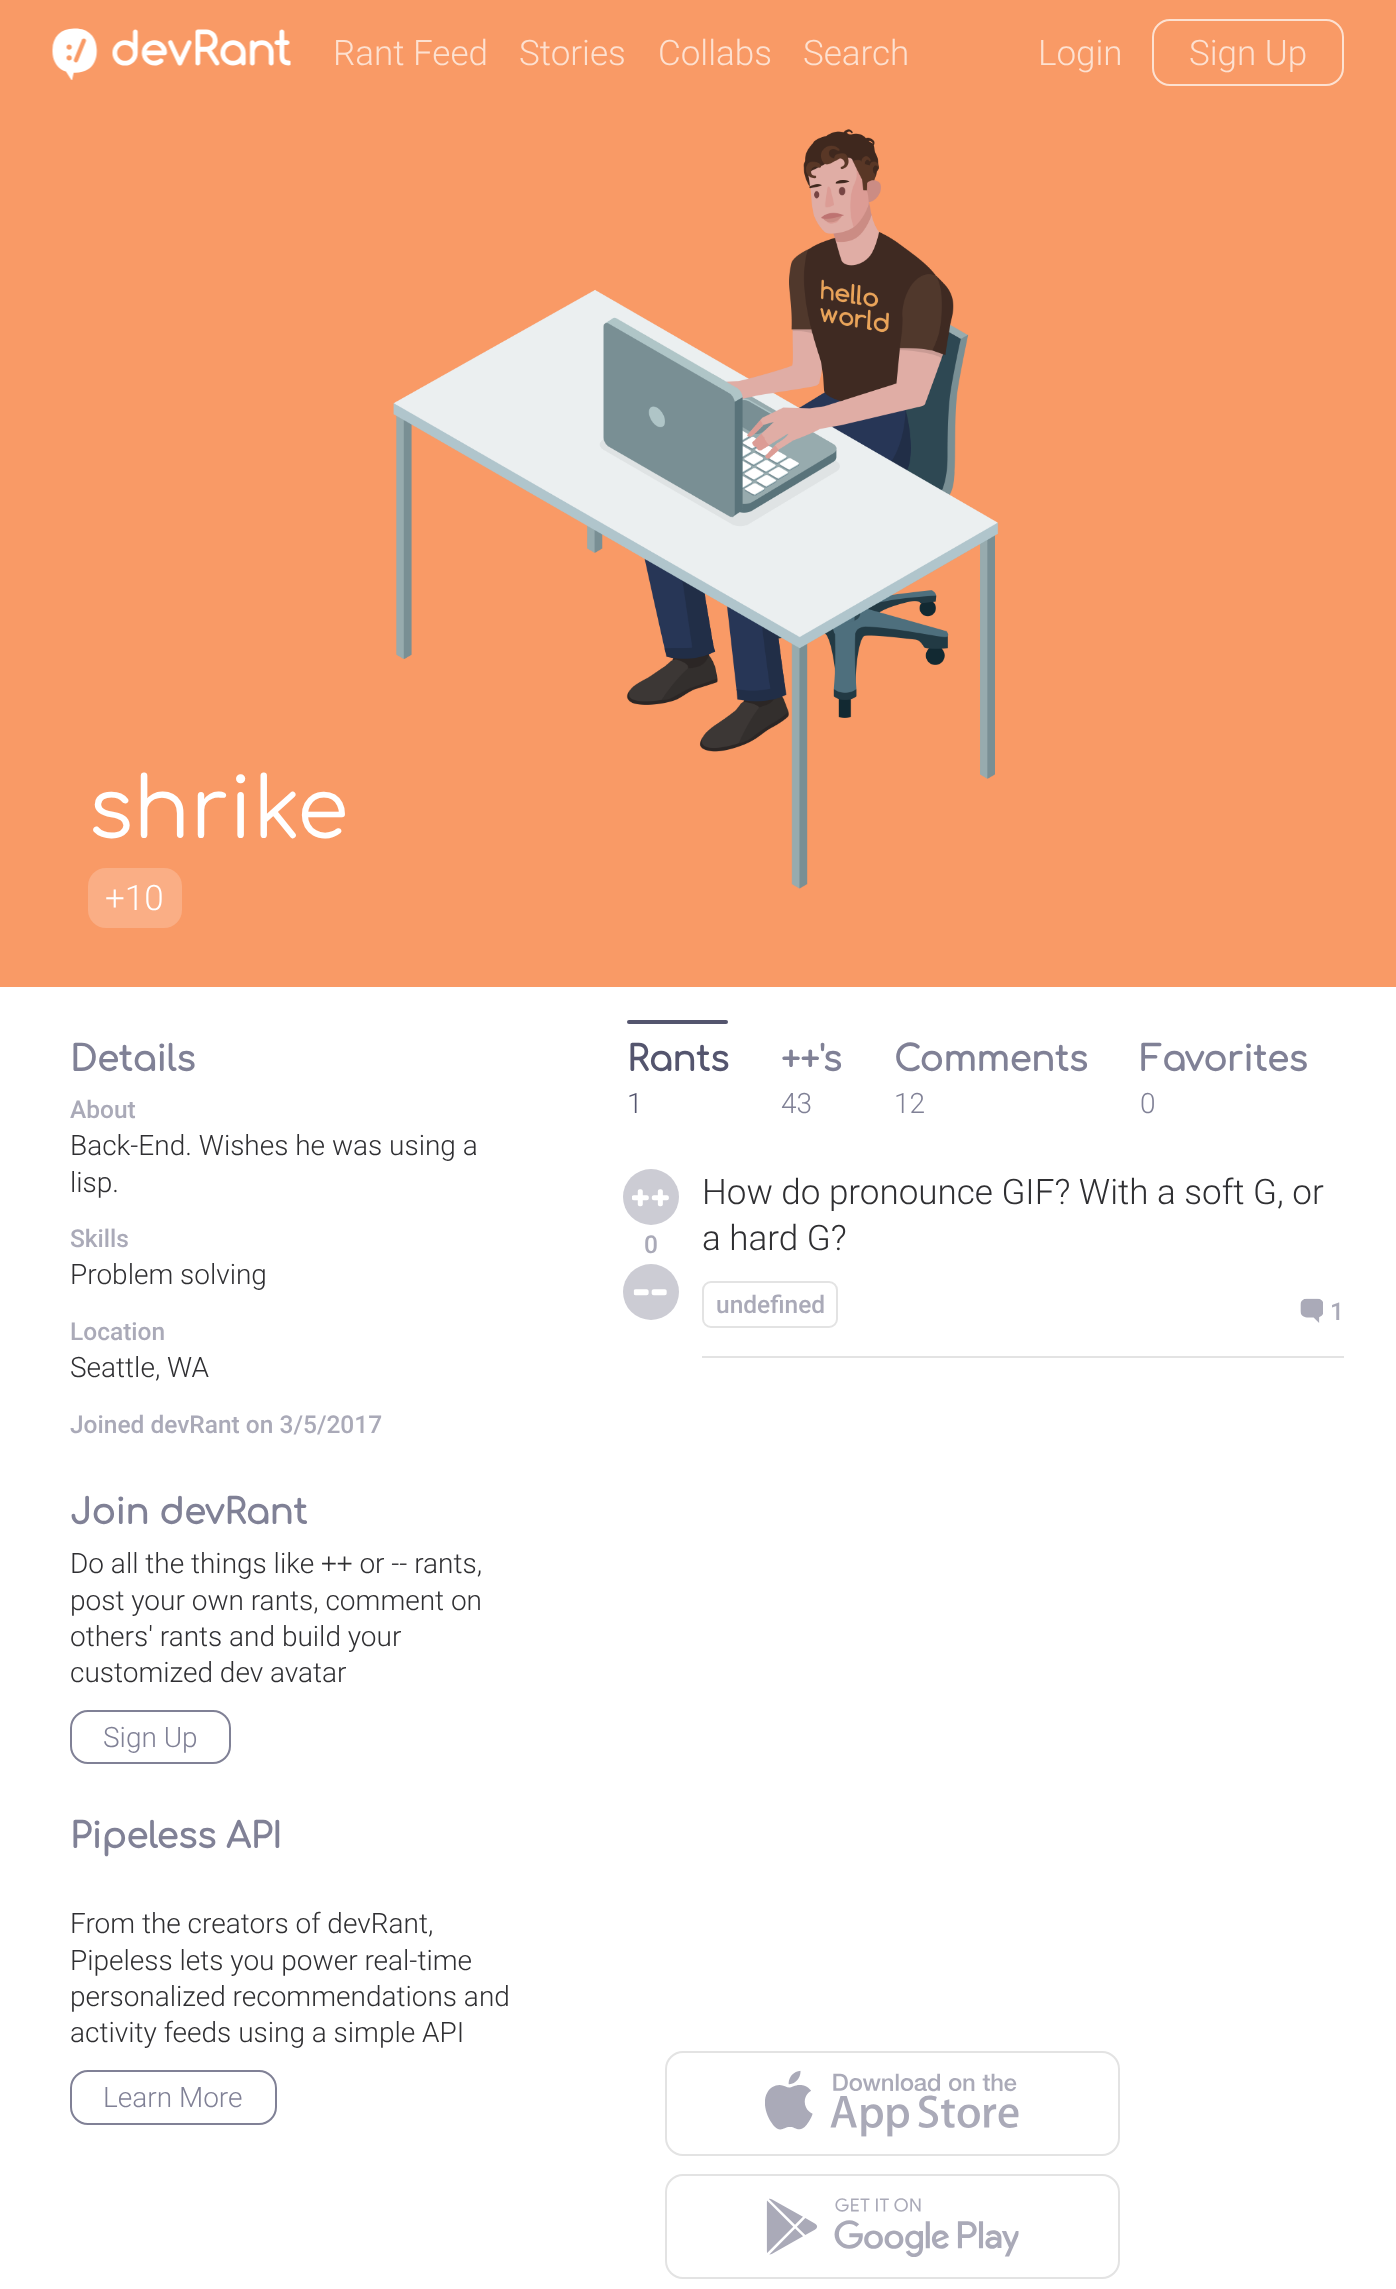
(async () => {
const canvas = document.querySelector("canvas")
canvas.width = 1396
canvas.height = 2289
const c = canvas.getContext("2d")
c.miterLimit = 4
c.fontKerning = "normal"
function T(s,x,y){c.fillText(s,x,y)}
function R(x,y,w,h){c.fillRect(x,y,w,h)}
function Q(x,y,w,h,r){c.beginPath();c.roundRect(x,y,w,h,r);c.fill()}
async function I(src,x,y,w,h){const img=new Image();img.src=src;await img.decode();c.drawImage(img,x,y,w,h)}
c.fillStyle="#fff"
R(0,0,1396,2289)
c.fillStyle="#f99a66"
R(0,0,1396,987)
await I("1.png",52,28,46,52)
await I("2.png",112,29,179,37)
c.font="300 35px Roboto"
c.fillStyle="#fde1d1"
T("Rant Feed",333,65)
T("Stories",519,65)
T("Collabs",658,65)
T("Search",803,65)
T("Login",1038,65)
c.beginPath()
c.roundRect(1153,20,190,65,17)
c.strokeStyle="#fde1d1"
c.lineWidth=2
c.stroke()
T("Sign Up",1189,65)
c.font="84px Comfortaa"
c.fillStyle="#fff"
T("shrike",88,838)
c.fillStyle="#faae85"
Q(88,868,94,60,18)
c.font="300 35px Roboto"
c.fillStyle="#fff"
T("+10",105,910)
await I("3.png",393,129,606,760)
c.font="bold 35px Comfortaa"
c.fillStyle="#808196"
T("Details",70,1071)
c.font="500 24.5px Roboto"
c.fillStyle="#aaaab8"
T("About",70,1118)
c.font="300 28px Roboto"
c.fillStyle="#2f2f32"
T("Back-End. Wishes he was using a",70,1155)
T("lisp.",70,1192)
c.font="500 24.5px Roboto"
c.fillStyle="#aaaab8"
T("Skills",70,1247)
c.font="300 28px Roboto"
c.fillStyle="#2f2f32"
T("Problem solving",70,1284)
c.font="500 24.5px Roboto"
c.fillStyle="#aaaab8"
T("Location",70,1340)
c.font="300 28px Roboto"
c.fillStyle="#2f2f32"
T("Seattle, WA",70,1377)
c.font="500 24.5px Roboto"
c.fillStyle="#aaaab8"
T("Joined devRant on 3/5/2017",70,1433)
c.font="bold 35px Comfortaa"
c.fillStyle="#808196"
T("Join devRant",70,1524)
c.font="300 28px Roboto"
c.fillStyle="#2f2f32"
T("Do all the things like ++ or -- rants,",70,1573)
T("post your own rants, comment on",70,1610)
T("others' rants and build your",70,1646)
T("customized dev avatar",70,1682)
c.beginPath()
c.roundRect(71,1711,159,52,17)
c.strokeStyle="#808196"
c.stroke()
c.fillStyle="#808196"
T("Sign Up",103,1747)
c.font="bold 35px Comfortaa"
T("Pipeless API",70,1848)
c.font="300 28px Roboto"
c.fillStyle="#2f2f32"
T("From the creators of devRant,",70,1933)
T("Pipeless lets you power real-time",70,1970)
T("personalized recommendations and",70,2006)
T("activity feeds using a simple API",70,2042)
c.beginPath()
c.roundRect(71,2071,205,53,17)
c.stroke()
c.fillStyle="#808196"
T("Learn More",103,2107)
c.fillStyle="#54556e"
Q(627,1020,101,4,2)
c.font="bold 35px Comfortaa"
T("Rants",627,1071)
c.font="300 28px Roboto"
T("1",627,1113)
c.font="bold 35px Comfortaa"
c.fillStyle="#808196"
T("++'s",781,1071)
c.font="300 28px Roboto"
T("43",781,1113)
c.font="bold 35px Comfortaa"
T("Comments",894,1071)
c.font="300 28px Roboto"
T("12",894,1113)
c.font="bold 35px Comfortaa"
T("Favorites",1140,1071)
c.font="300 28px Roboto"
T("0",1140,1113)
c.fillStyle="#ccccd4"
c.beginPath()
c.arc(651,1197,28,0,7)
c.fill()
await I("4.png",632,1189,37,18)
c.font="500 24.5px Roboto"
c.fillStyle="#aaaab8"
T("0",644,1253)
c.fillStyle="#ccccd4"
c.beginPath()
c.arc(651,1292,28,0,7)
c.fill()
await I("5.png",633,1289,34,7)
c.fillStyle="#e3e3e3"
R(702,1356,642,2)
c.font="300 35px Roboto"
c.fillStyle="#2f2f32"
T("How do pronounce GIF? With a soft G, or",702,1204)
T("a hard G?",702,1250)
c.beginPath()
c.roundRect(703,1282,134,45,8)
c.strokeStyle="#e3e3e3"
c.stroke()
c.font="500 24.5px Roboto"
c.fillStyle="#aaaab8"
T("undefined",716,1313)
await I("6.png",1300,1298,23,25)
T("1",1330,1320)
c.beginPath()
c.roundRect(666,2052,453,103,17)
c.stroke()
await I("7.png",765,2070,254,67)
c.beginPath()
c.roundRect(666,2175,453,103,17)
c.stroke()
await I("8.png",766,2198,253,59)
})()
